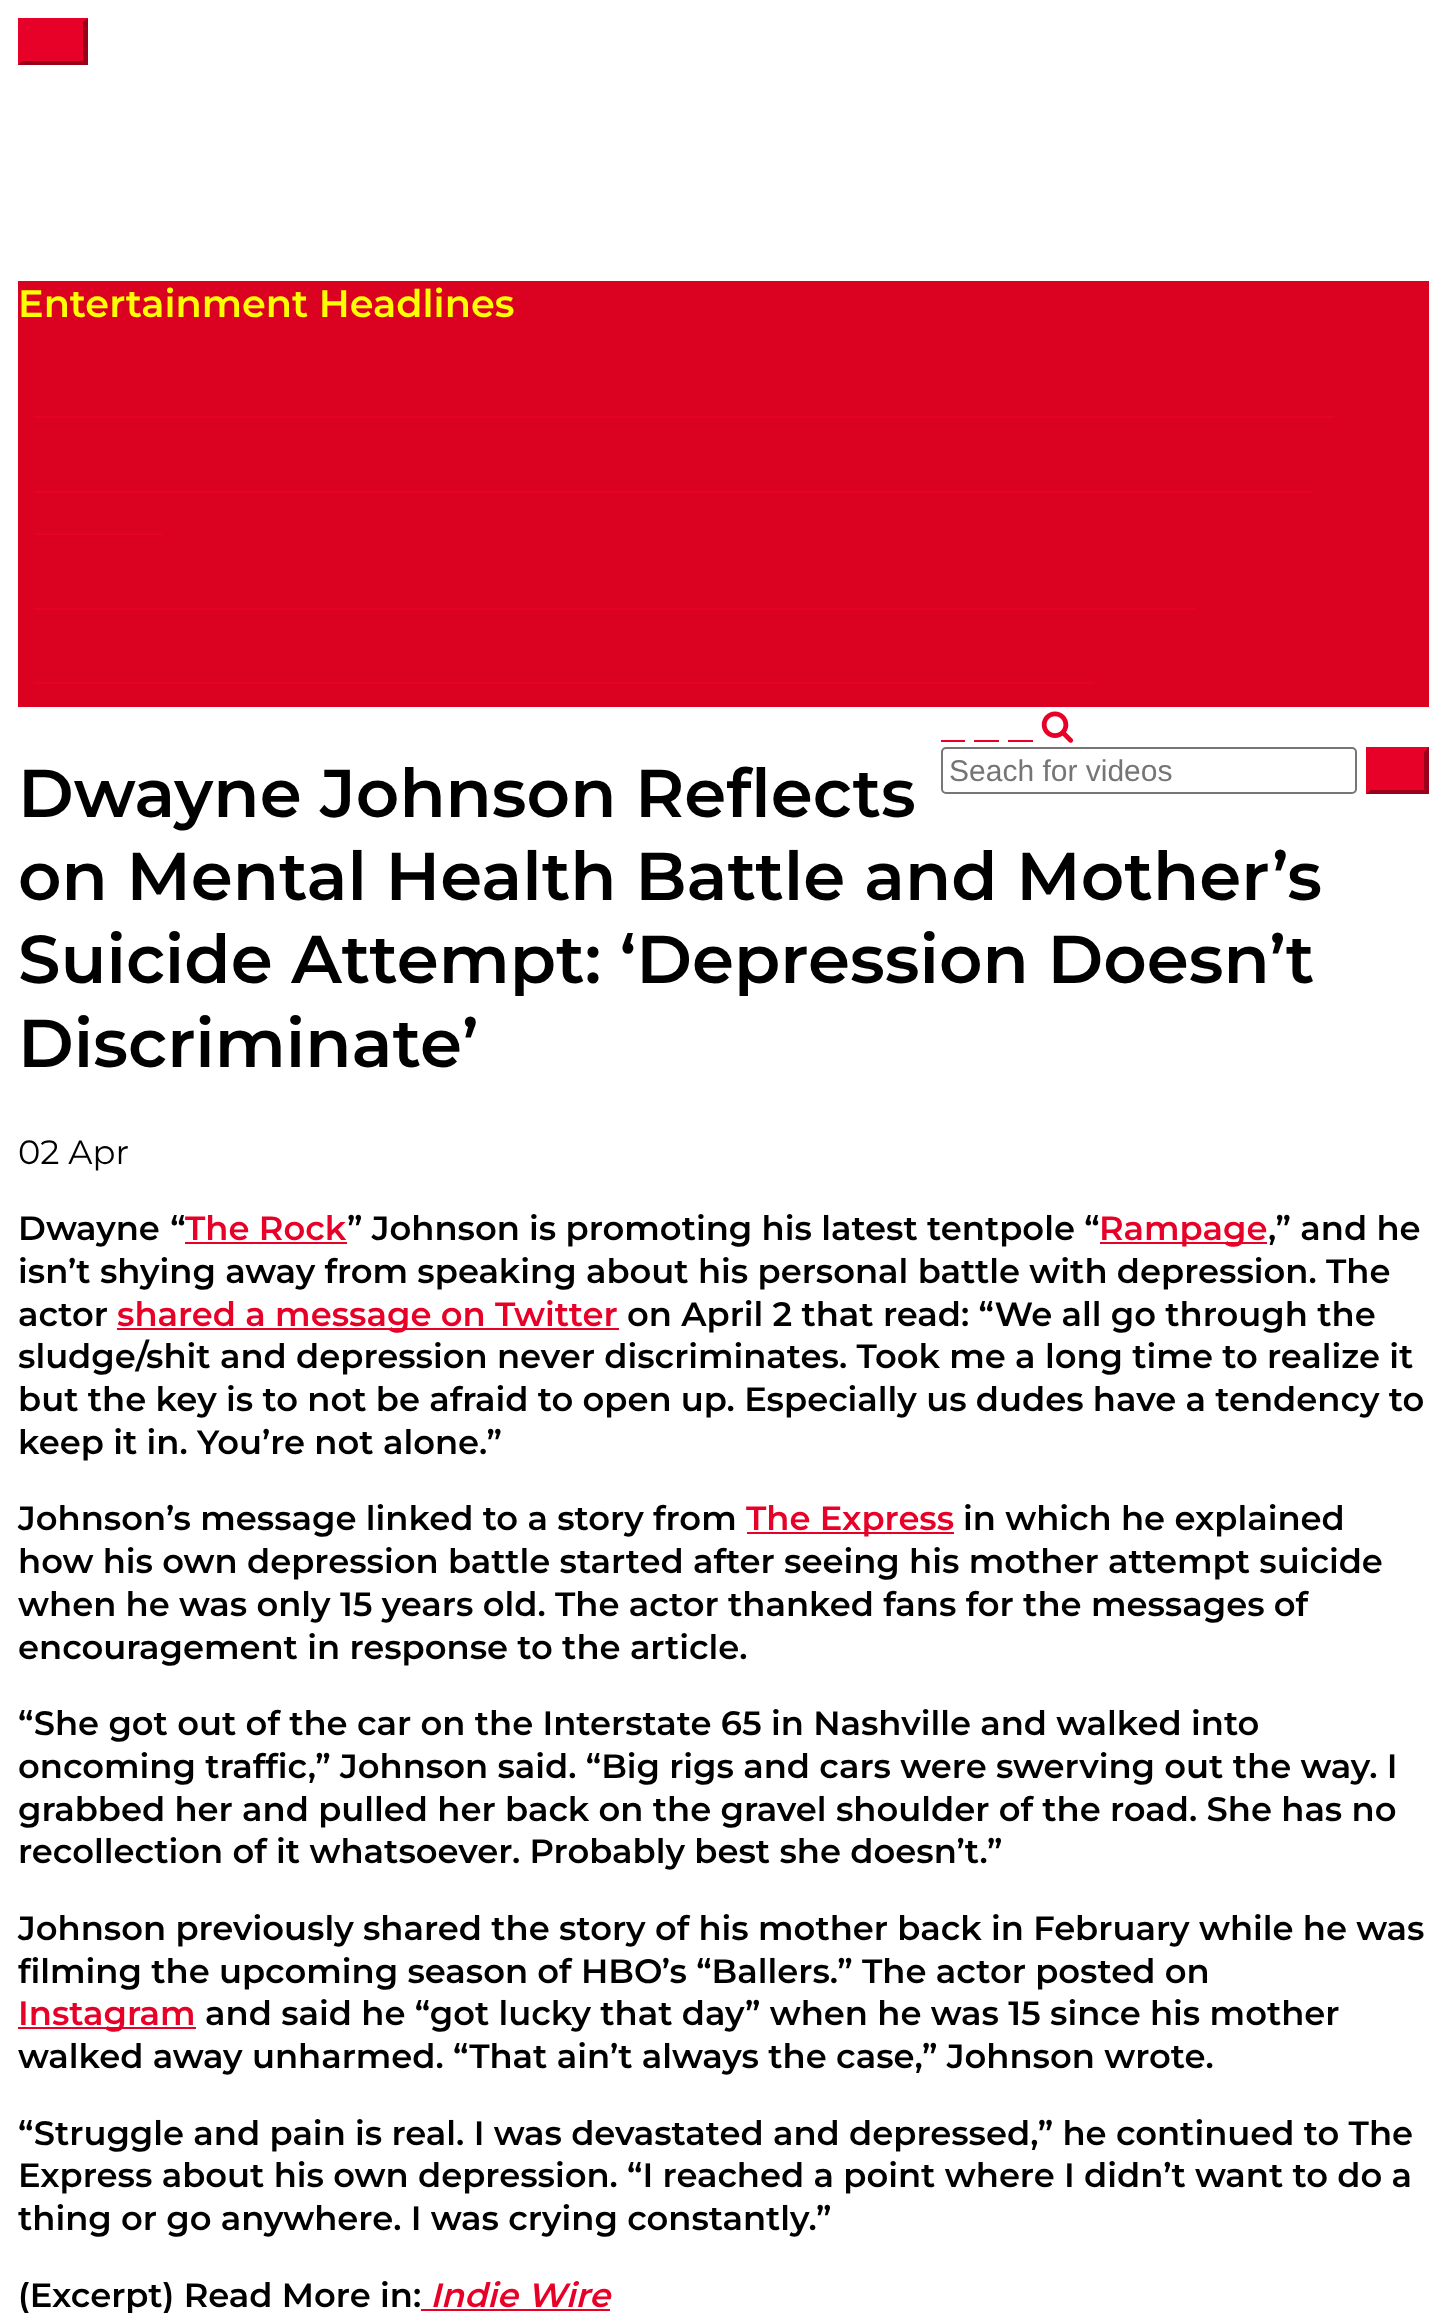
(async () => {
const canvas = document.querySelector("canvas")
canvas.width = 1445
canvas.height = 2313
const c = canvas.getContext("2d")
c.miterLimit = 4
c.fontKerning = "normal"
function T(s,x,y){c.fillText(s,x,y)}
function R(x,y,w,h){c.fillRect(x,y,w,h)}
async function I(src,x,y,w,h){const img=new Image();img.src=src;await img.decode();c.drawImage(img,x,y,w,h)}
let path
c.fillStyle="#fff"
R(0,0,1445,2313)
c.fillStyle="#e70027"
R(18,18,70,47)
c.fillStyle="#9a001a"
path = new Path2D("M88 18v47l-5-4v-39z")
c.fill(path)
path = new Path2D("M88 65h-70l4-4h61z")
c.fill(path)
c.fillStyle="#e70027"
path = new Path2D("M18 65v-47l4 4v39z")
c.fill(path)
c.fillStyle="#da0220"
R(18,281,1411,426)
c.font="600 38.25px Montserrat"
c.fillStyle="#fbff00"
T("Entertainment Headlines",18,317)
c.fillStyle="#e70027"
R(34,416,1300,2)
R(34,491,1278,2)
R(34,533,128,2)
R(34,608,1163,2)
R(34,682,1060,2)
R(941,740,24,2)
R(974,740,25,2)
R(1008,740,25,2)
await I("1.png",1041,711,33,32)
c.beginPath()
c.roundRect(942,748,414,45,4)
c.strokeStyle="#767676"
c.lineWidth=2
c.stroke()
c.font="30px Liberation Sans"
c.fillStyle="#757575"
T("Seach for videos",949,781)
c.fillStyle="#e70027"
R(1366,747,63,47)
c.fillStyle="#9a001a"
path = new Path2D("M1429 747v47l-5-4v-38z")
c.fill(path)
path = new Path2D("M1429 794h-63l4-4h54z")
c.fill(path)
c.fillStyle="#e70027"
path = new Path2D("M1366 794v-47l4 5v38z")
c.fill(path)
c.font="600 67.5px Montserrat"
c.fillStyle="#000"
T("Dwayne Johnson Reflects",18,817)
T("on Mental Health Battle and Mother’s",18,900)
T("Suicide Attempt: ‘Depression Doesn’t",18,983)
T("Discriminate’",18,1067)
c.font="33.75px Montserrat"
T("02 Apr",18,1164)
c.wordSpacing="1px"
c.font="600 33.75px Montserrat"
T("Dwayne “",18,1240)
c.wordSpacing="0px"
c.fillStyle="#e70027"
T("The Rock",185,1240)
R(185,1242,162,2)
c.fillStyle="#000"
T("” Johnson is promoting his latest tentpole “",347,1240)
c.fillStyle="#e70027"
R(1100,1242,167,2)
T("Rampage",1099,1240)
c.fillStyle="#000"
T(",” and he",1268,1240)
T("isn’t shying away from speaking about his personal battle with depression. The",18,1283)
T("actor",18,1326)
c.fillStyle="#e70027"
R(117,1328,502,2)
T("shared a message on Twitter",117,1326)
c.fillStyle="#000"
T("on April 2 that read: “We all go through the",627,1326)
T("sludge/shit and depression never discriminates. Took me a long time to realize it",18,1368)
T("but the key is to not be afraid to open up. Especially us dudes have a tendency to",18,1411)
T("keep it in. You’re not alone.”",18,1454)
T("Johnson’s message linked to a story from",18,1530)
c.fillStyle="#e70027"
R(747,1532,207,2)
T("The Express",746,1530)
c.fillStyle="#000"
T("in which he explained",963,1530)
T("how his own depression battle started after seeing his mother attempt suicide",18,1573)
T("when he was only 15 years old. The actor thanked fans for the messages of",18,1616)
T("encouragement in response to the article.",18,1659)
T("“She got out of the car on the Interstate 65 in Nashville and walked into",18,1735)
T("oncoming traffic,” Johnson said. “Big rigs and cars were swerving out the way. I",18,1778)
T("grabbed her and pulled her back on the gravel shoulder of the road. She has no",18,1821)
T("recollection of it whatsoever. Probably best she doesn’t.”",18,1863)
T("Johnson previously shared the story of his mother back in February while he was",18,1940)
T("filming the upcoming season of HBO’s “Ballers.” The actor posted on",18,1983)
c.fillStyle="#e70027"
R(18,2027,178,2)
T("Instagram",18,2025)
c.fillStyle="#000"
T("and said he “got lucky that day” when he was 15 since his mother",205,2025)
T("walked away unharmed. “That ain’t always the case,” Johnson wrote.",18,2068)
T("“Struggle and pain is real. I was devastated and depressed,” he continued to The",18,2145)
T("Express about his own depression. “I reached a point where I didn’t want to do a",18,2187)
T("thing or go anywhere. I was crying constantly.”",18,2230)
T("(Excerpt) Read More in:",18,2307)
c.font="italic 600 33.75px Montserrat"
c.fillStyle="#e70027"
T("Indie Wire",430,2307)
R(421,2309,189,2)
})()
